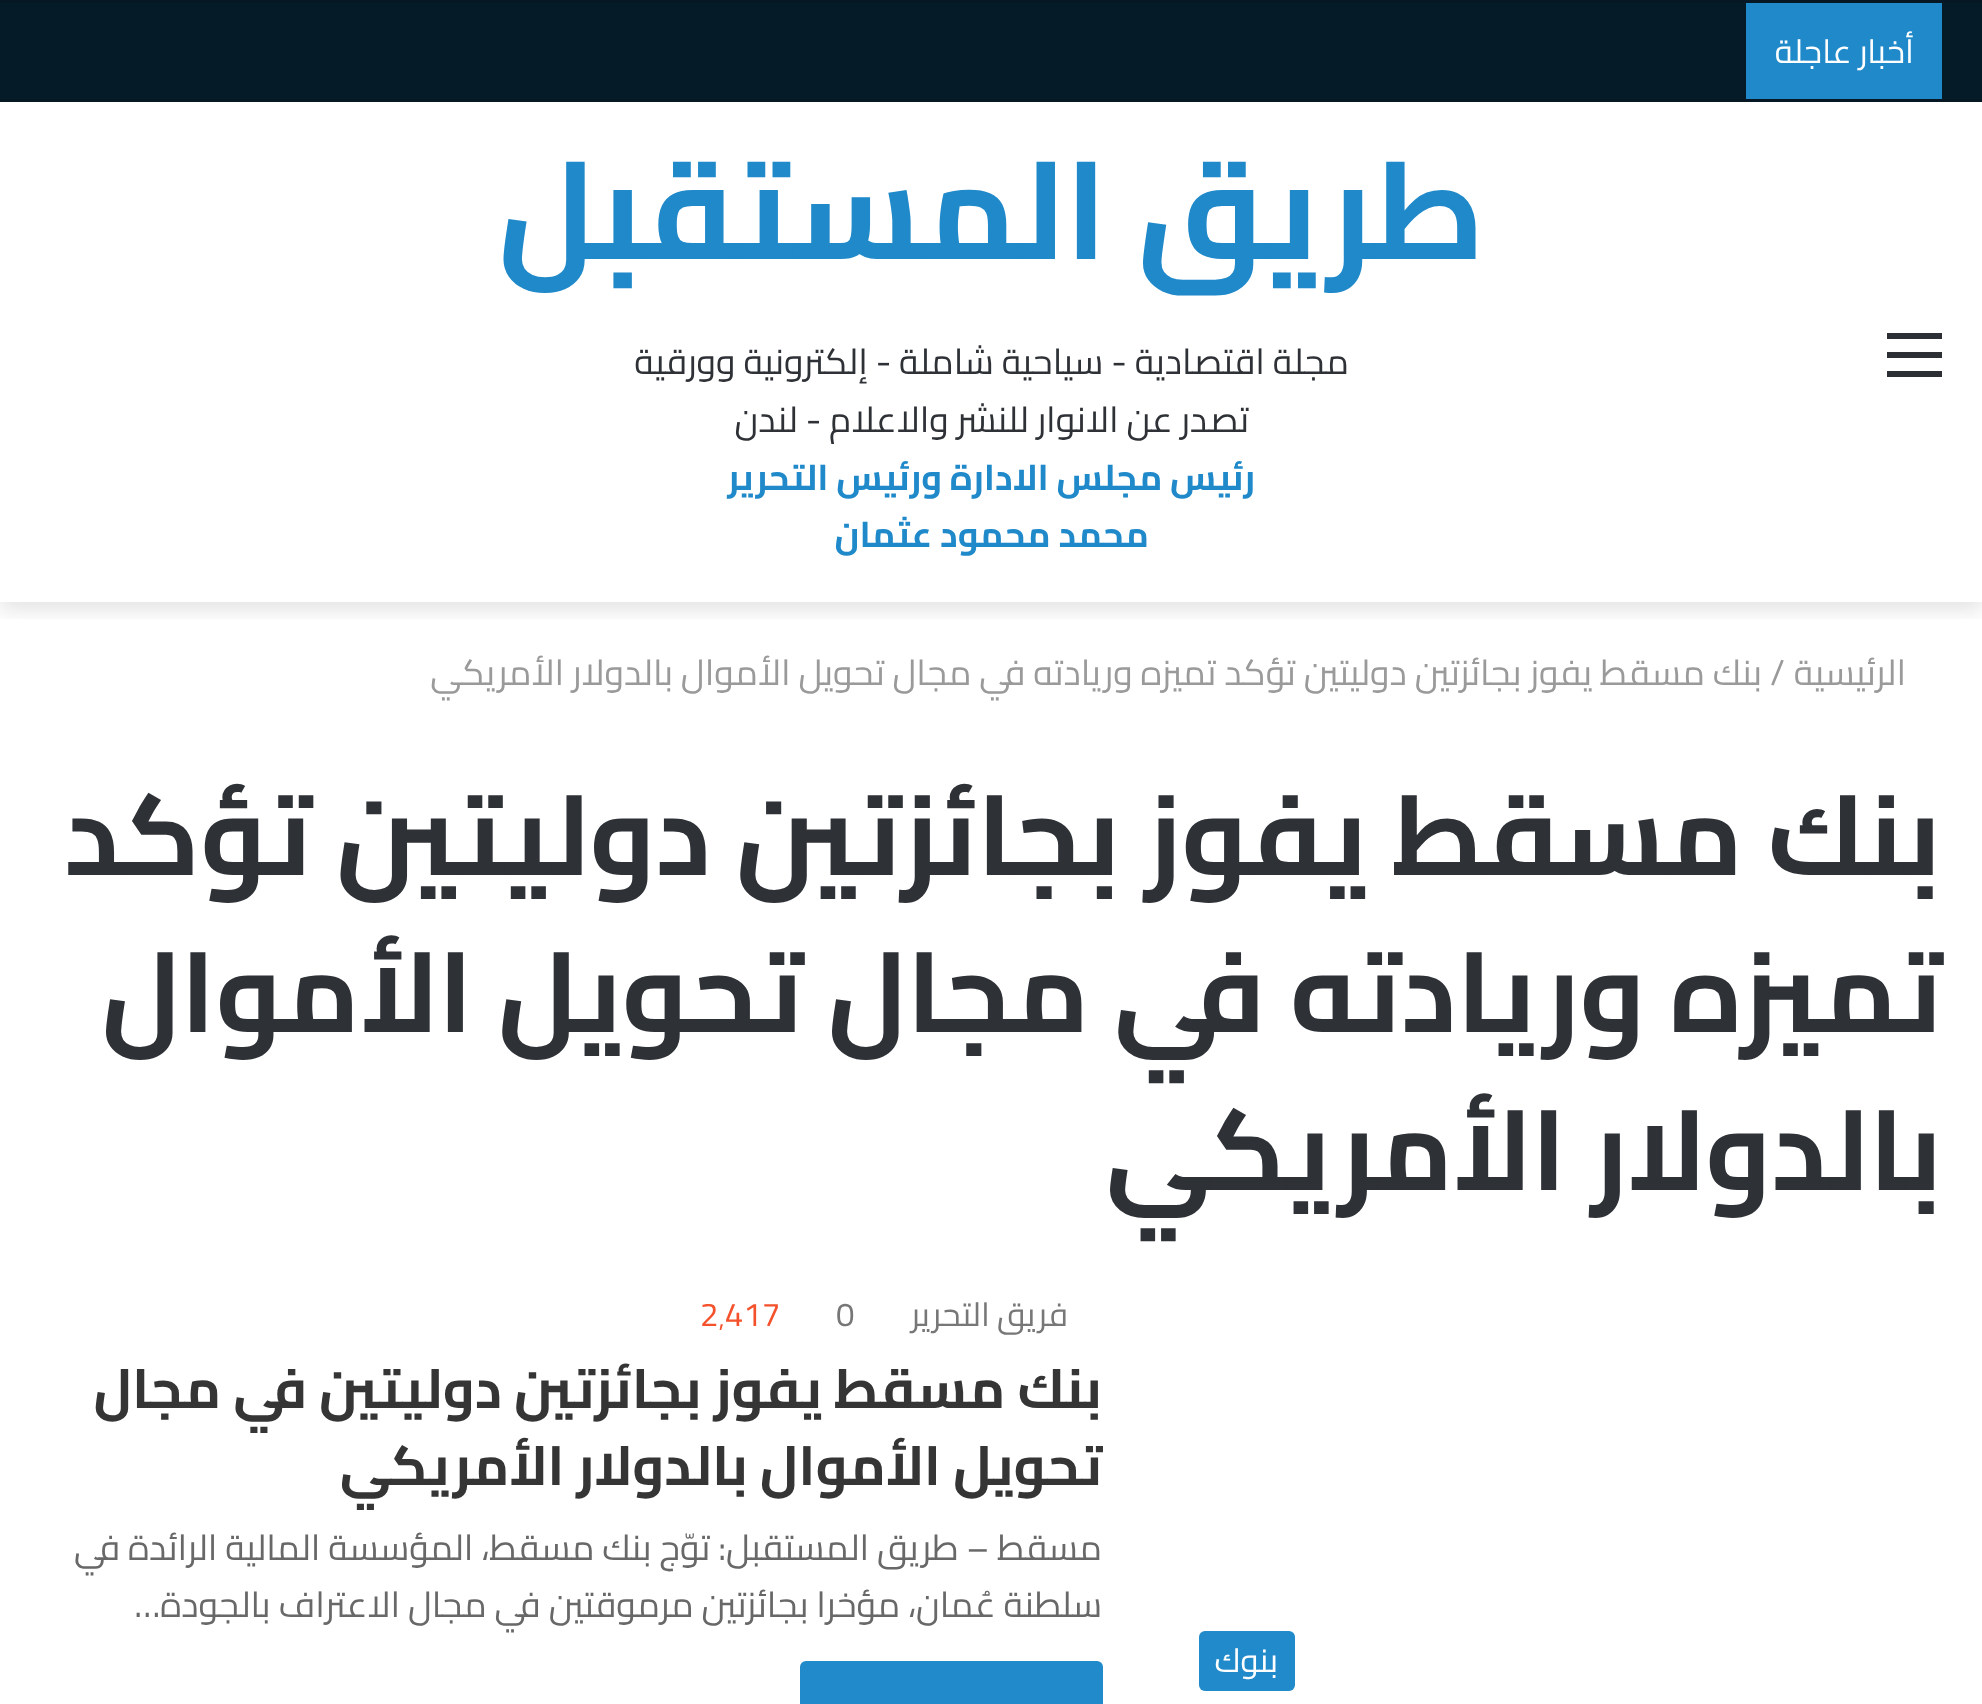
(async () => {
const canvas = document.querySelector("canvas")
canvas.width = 1982
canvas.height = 1704
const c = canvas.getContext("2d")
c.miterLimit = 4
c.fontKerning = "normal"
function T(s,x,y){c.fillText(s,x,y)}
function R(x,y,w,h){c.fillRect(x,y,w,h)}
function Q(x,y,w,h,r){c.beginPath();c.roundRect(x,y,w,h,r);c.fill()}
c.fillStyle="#fff"
R(0,0,1982,1704)
c.save()
c.beginPath()
c.rect(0,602,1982,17)
c.clip()
c.fillStyle="#0000001a"
c.filter="blur(9.5px)"
c.beginPath()
c.rect(0,110,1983,501)
c.fill()
c.filter="none"
c.restore()
c.fillStyle="#061b28"
R(0,3,1982,96)
c.fillStyle="#051824"
R(0,0,1982,3)
R(0,99,1982,3)
c.fillStyle="#1f89ca"
R(1746,3,196,96)
c.direction="rtl"
c.font="33px Cairo"
c.fillStyle="#fff"
T("أخبار عاجلة",1914,63)
c.fillStyle="#2c2f34"
R(1887,352,55,6)
R(1887,333,55,6)
R(1887,371,55,6)
c.font="bold 137.5px Cairo"
c.fillStyle="#1f89ca"
T("طريق المستقبل",1485,259)
c.font="35.75px Cairo"
c.fillStyle="#2e3136"
T("مجلة اقتصادية - سياحية شاملة - إلكترونية وورقية",1349,374)
T("تصدر عن الانوار للنشر والاعلام - لندن",1249,432)
c.font="bold 35.75px Cairo"
c.fillStyle="#1f89ca"
T("رئيس مجلس الادارة ورئيس التحرير",1255,490)
T("محمد محمود عثمان",1149,547)
c.font="35.75px Cairo"
c.fillStyle="#9a9a9a"
T("الرئيسية",1906,685)
c.direction="ltr"
T("/",1770,685)
c.direction="rtl"
T("بنك مسقط يفوز بجائزتين دوليتين تؤكد تميزه وريادته في مجال تحويل الأموال بالدولار الأمريكي",1762,685)
c.font="bold 112.75px Cairo"
c.fillStyle="#2e3136"
T("بنك مسقط يفوز بجائزتين دوليتين تؤكد",1941,875)
T("تميزه وريادته في مجال تحويل الأموال",1942,1032)
T("بالدولار الأمريكي",1942,1190)
c.font="33px Cairo"
c.fillStyle="#777"
T("فريق التحرير",1068,1326)
c.direction="ltr"
T("0",836,1326)
c.fillStyle="#f3522c"
T("2٬417",700,1326)
c.direction="rtl"
c.font="bold 55px Cairo"
c.fillStyle="#353535"
T("بنك مسقط يفوز بجائزتين دوليتين في مجال",1102,1408)
T("تحويل الأموال بالدولار الأمريكي",1102,1485)
c.font="35.75px Cairo"
c.fillStyle="#686868"
T("مسقط – طريق المستقبل: توّج بنك مسقط، المؤسسة المالية الرائدة في",1102,1560)
T("سلطنة عُمان، مؤخرا بجائزتين مرموقتين في مجال الاعتراف بالجودة…",1102,1617)
c.fillStyle="#218acb"
Q(800,1661,303,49,6)
Q(1199,1631,96,60,6)
c.font="33px Cairo"
c.fillStyle="#fff"
T("بنوك",1278,1672)
})()
